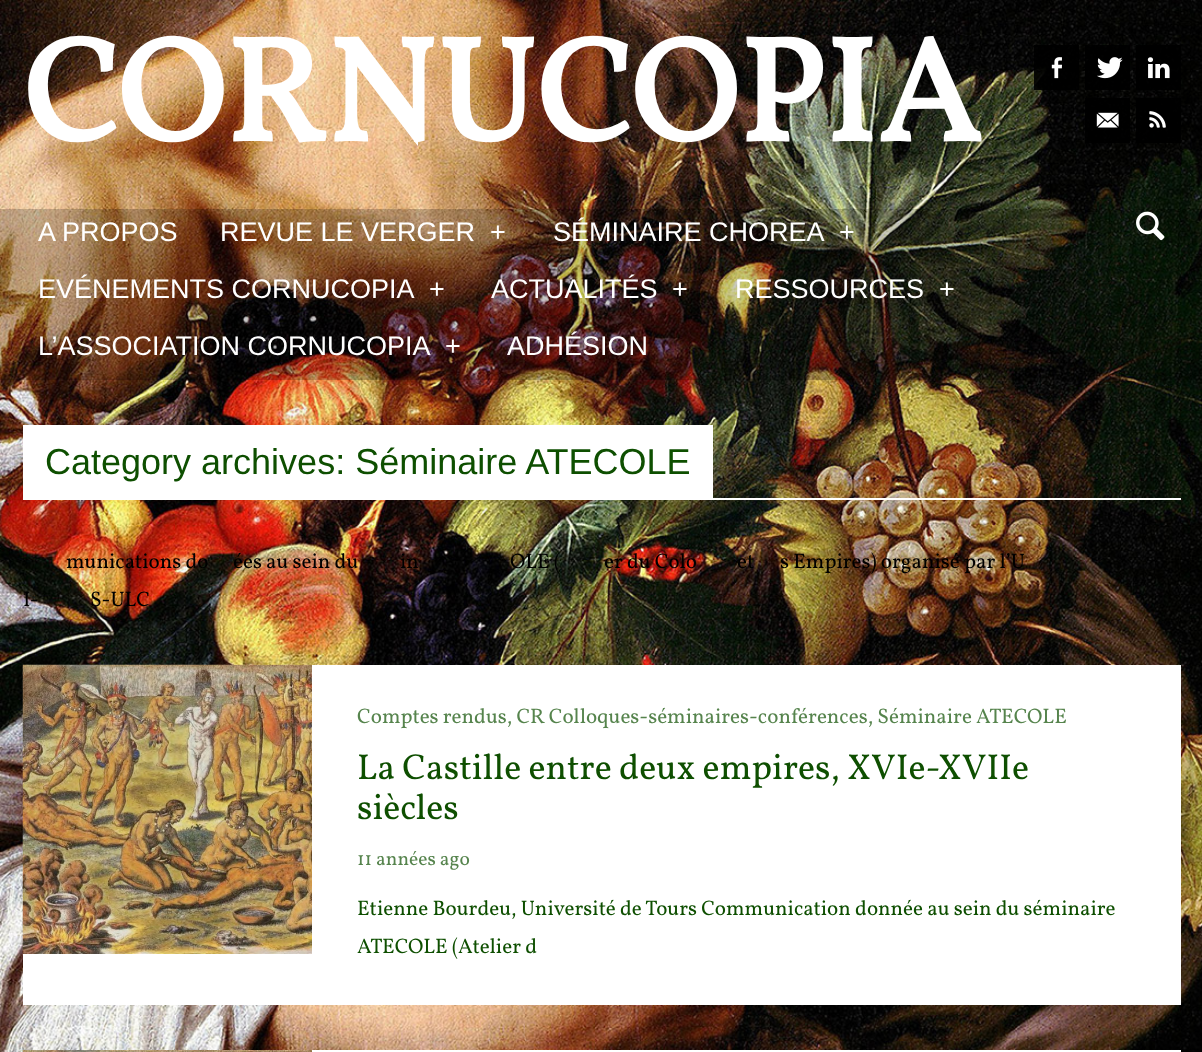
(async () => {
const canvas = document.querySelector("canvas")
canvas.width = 1202
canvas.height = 1052
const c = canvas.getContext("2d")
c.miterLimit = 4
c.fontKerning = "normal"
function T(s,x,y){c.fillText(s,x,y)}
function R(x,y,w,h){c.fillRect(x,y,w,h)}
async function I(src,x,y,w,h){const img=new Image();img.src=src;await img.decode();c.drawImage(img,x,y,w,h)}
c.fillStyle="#fff"
R(0,0,1202,1052)
await I("1.png",0,0,1202,1052)
c.letterSpacing="0.25px"
c.font="bold 147.75px Vollkorn"
T("CORNUCOPIA",23,141)
c.fillStyle="#000000e6"
R(1034,45,45,45)
await I("2.png",1051,57,11,22)
R(1085,45,45,45)
await I("3.png",1097,57,26,22)
R(1136,45,45,45)
await I("4.png",1147,57,23,22)
R(1085,98,45,45)
await I("5.png",1096,112,23,16)
R(1136,98,45,45)
await I("6.png",1149,111,17,17)
c.fillStyle="#00000033"
R(0,209,1202,171)
c.letterSpacing="0px"
c.font="27px Liberation Sans"
c.fillStyle="#fff"
T("A PROPOS",38,241)
T("REVUE LE VERGER",220,241)
T("+",490,241)
T("SÉMINAIRE CHOREA",553,241)
T("+",839,241)
T("EVÉNEMENTS CORNUCOPIA",38,298)
T("+",429,298)
T("ACTUALITÉS",491,298)
T("+",672,298)
T("RESSOURCES",735,298)
T("+",939,298)
T("L’ASSOCIATION CORNUCOPIA",38,355)
T("+",445,355)
T("ADHÉSION",507,355)
await I("7.png",1136,211,29,30)
R(713,498,468,2)
R(23,425,690,75)
c.font="36px Liberation Sans"
c.fillStyle="#0e4f00"
T("Category archives: Séminaire ATECOLE",45,474)
c.font="21px Vollkorn"
c.fillStyle="#000"
T("munications do",66,568)
T("ées au sein du",233,568)
T("in",400,568)
T("OLE (",510,568)
T("er du Colo",604,568)
T("et",737,568)
T("s Empires) organisé par l’U",780,568)
T("I-",23,606)
T("S-ULC",90,606)
c.fillStyle="#fff"
R(23,665,1158,340)
await I("8.png",22,664,290,290)
c.fillStyle="#56844d"
T("Comptes rendus, CR Colloques-séminaires-conférences, Séminaire ATECOLE",357,723)
c.font="36px Vollkorn"
c.fillStyle="#0e4f00"
T("La Castille entre deux empires, XVIe-XVIIe",357,779)
T("siècles",357,819)
c.font="19.5px Vollkorn"
c.fillStyle="#56844d"
T("11 années ago",357,865)
c.font="21px Vollkorn"
c.fillStyle="#0e4f00"
T("Etienne Bourdeu, Université de Tours Communication donnée au sein du séminaire",357,915)
T("ATECOLE (Atelier d",357,953)
c.fillStyle="#fff"
R(312,1050,869,2)
await I("9.png",22,1050,290,2)
})()
